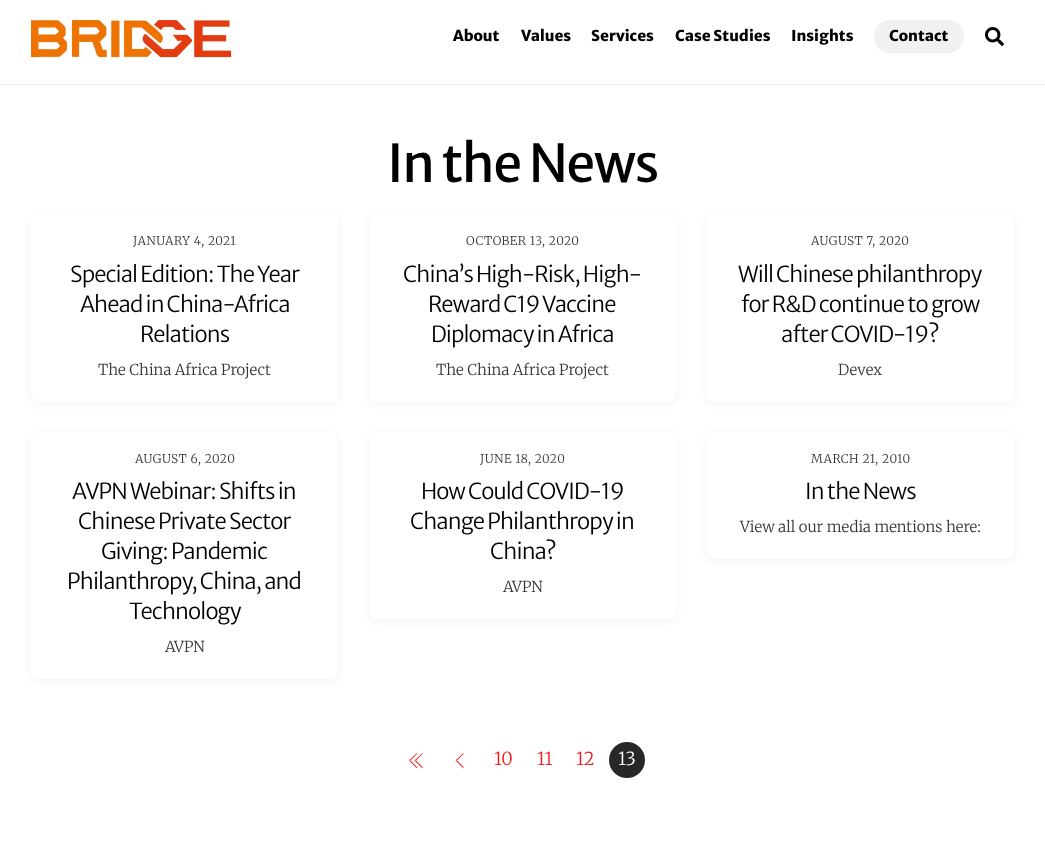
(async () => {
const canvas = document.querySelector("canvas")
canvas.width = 1045
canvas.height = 865
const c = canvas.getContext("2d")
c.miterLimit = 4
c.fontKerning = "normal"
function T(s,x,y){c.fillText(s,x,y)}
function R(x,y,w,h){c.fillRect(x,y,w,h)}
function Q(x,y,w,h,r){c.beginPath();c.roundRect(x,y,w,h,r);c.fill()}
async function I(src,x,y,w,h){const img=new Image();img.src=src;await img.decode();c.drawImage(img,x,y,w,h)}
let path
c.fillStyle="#fff"
R(0,0,1045,865)
c.fillStyle="#f2f2f2"
R(0,84,1045,1)
await I("1.png",31,20,201,38)
c.font="800 15px Merriweather Sans"
c.fillStyle="#000"
T("About",453,41)
T("Values",521,41)
T("Services",591,41)
T("Case Studies",675,41)
T("Insights",791,41)
c.fillStyle="#f1f1f1"
Q(874,20,90,33,16.5)
c.fillStyle="#000"
T("Contact",889,41)
await I("2.png",985,27,19,19)
c.letterSpacing="-1.5px"
c.font="52px Merriweather Sans"
T("In the News",387,182)
c.fillStyle="#0000000d"
c.filter="blur(4px)"
c.beginPath()
c.roundRect(31,216,307,188,8)
c.fill()
c.filter="none"
c.fillStyle="#fff"
Q(31,214,307,188,8)
c.letterSpacing="0.5px"
c.font="300 12px Merriweather"
c.fillStyle="#383532"
T("JANUARY 4, 2021",133,245)
c.letterSpacing="-0.9px"
c.font="300 22px Merriweather Sans"
c.fillStyle="#000"
T("Special Edition: The Year",70,282)
T("Ahead in China-Africa",80,312)
T("Relations",140,342)
c.letterSpacing="0px"
c.font="300 15px Merriweather"
c.fillStyle="#383532"
T("The China Africa Project",98,375)
c.fillStyle="#0000000d"
c.filter="blur(4px)"
c.beginPath()
c.roundRect(369,216,307,188,8)
c.fill()
c.filter="none"
c.fillStyle="#fff"
Q(369,214,307,188,8)
c.letterSpacing="0.5px"
c.font="300 12px Merriweather"
c.fillStyle="#383532"
T("OCTOBER 13, 2020",466,245)
c.letterSpacing="-0.9px"
c.font="300 22px Merriweather Sans"
c.fillStyle="#000"
T("China’s High-Risk, High-",403,282)
T("Reward C19 Vaccine",428,312)
T("Diplomacy in Africa",431,342)
c.letterSpacing="0px"
c.font="300 15px Merriweather"
c.fillStyle="#383532"
T("The China Africa Project",436,375)
c.fillStyle="#0000000d"
c.filter="blur(4px)"
c.beginPath()
c.roundRect(707,216,307,188,8)
c.fill()
c.filter="none"
c.fillStyle="#fff"
Q(707,214,307,188,8)
c.letterSpacing="0.5px"
c.font="300 12px Merriweather"
c.fillStyle="#383532"
T("AUGUST 7, 2020",811,245)
c.letterSpacing="-0.9px"
c.font="300 22px Merriweather Sans"
c.fillStyle="#000"
T("Will Chinese philanthropy",738,282)
T("for R&D continue to grow",741,312)
T("after COVID-19?",781,342)
c.letterSpacing="0px"
c.font="300 15px Merriweather"
c.fillStyle="#383532"
T("Devex",838,375)
c.fillStyle="#0000000d"
c.filter="blur(4px)"
c.beginPath()
c.roundRect(31,434,307,247,8)
c.fill()
c.filter="none"
c.fillStyle="#fff"
Q(31,432,307,247,8)
c.letterSpacing="0.5px"
c.font="300 12px Merriweather"
c.fillStyle="#383532"
T("AUGUST 6, 2020",135,463)
c.letterSpacing="-0.9px"
c.font="300 22px Merriweather Sans"
c.fillStyle="#000"
T("AVPN Webinar: Shifts in",72,499)
T("Chinese Private Sector",78,529)
T("Giving: Pandemic",101,559)
T("Philanthropy, China, and",67,589)
T("Technology",129,619)
c.letterSpacing="0px"
c.font="300 15px Merriweather"
c.fillStyle="#383532"
T("AVPN",165,652)
c.fillStyle="#0000000d"
c.filter="blur(4px)"
c.beginPath()
c.roundRect(369,434,307,187,8)
c.fill()
c.filter="none"
c.fillStyle="#fff"
Q(369,432,307,187,8)
c.letterSpacing="0.5px"
c.font="300 12px Merriweather"
c.fillStyle="#383532"
T("JUNE 18, 2020",480,463)
c.letterSpacing="-0.9px"
c.font="300 22px Merriweather Sans"
c.fillStyle="#000"
T("How Could COVID-19",421,499)
T("Change Philanthropy in",410,529)
T("China?",490,559)
c.letterSpacing="0px"
c.font="300 15px Merriweather"
c.fillStyle="#383532"
T("AVPN",503,592)
c.fillStyle="#0000000d"
c.filter="blur(4px)"
c.beginPath()
c.roundRect(707,434,307,127,8)
c.fill()
c.filter="none"
c.fillStyle="#fff"
Q(707,432,307,127,8)
c.letterSpacing="0.5px"
c.font="300 12px Merriweather"
c.fillStyle="#383532"
T("MARCH 21, 2010",811,463)
c.letterSpacing="-0.9px"
c.font="300 22px Merriweather Sans"
c.fillStyle="#000"
T("In the News",805,499)
c.letterSpacing="0px"
c.font="300 15px Merriweather"
c.fillStyle="#383532"
T("View all our media mentions here:",740,532)
c.fillStyle="#ed1e24"
path = new Path2D("M414.5 760.5l8-7.5v1l-6.5 6.5z")
c.fill(path)
path = new Path2D("M422.5 768.5l-8-8h1.5l6.5 6.5z")
c.fill(path)
path = new Path2D("M409 760.5l8-7.5v1l-6.5 6.5z")
c.fill(path)
path = new Path2D("M417 768.5l-8-8h1.5l6.5 6.5zm38.5-8l8-7.5v1l-6.5 6.5z")
c.fill(path)
c.font="300 18px Merriweather"
T("10",494,765)
T("11",537,765)
T("12",576,765)
c.fillStyle="#272727"
c.beginPath()
c.arc(627,760,18,0,7)
c.fill()
c.fillStyle="#fff"
T("13",618,765)
c.fillStyle="#ed1e24"
path = new Path2D("M463.5 768.5l-8-8h1.5l6.5 6.5z")
c.fill(path)
})()
